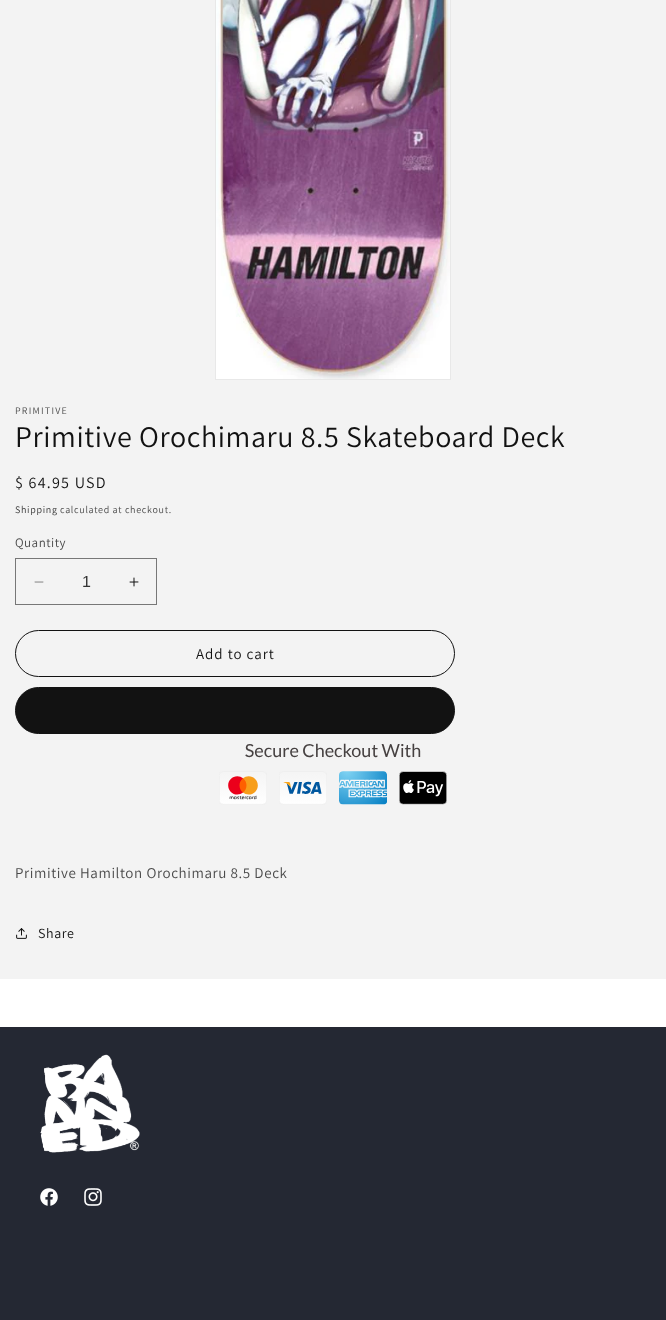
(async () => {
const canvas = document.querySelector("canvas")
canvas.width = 666
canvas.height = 1320
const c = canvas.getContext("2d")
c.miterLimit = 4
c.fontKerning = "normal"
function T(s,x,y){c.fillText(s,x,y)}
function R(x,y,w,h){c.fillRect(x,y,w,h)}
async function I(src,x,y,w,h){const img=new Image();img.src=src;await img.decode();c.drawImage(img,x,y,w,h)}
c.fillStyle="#fff"
R(0,0,666,1320)
c.fillStyle="#f3f3f3"
R(0,0,666,979)
c.strokeStyle="#e8e8e8"
c.strokeRect(215.5,-.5,235,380)
await I("1.png",216,0,234,379)
c.letterSpacing="1.25px"
c.font="10px Assistant"
c.fillStyle="#4a4a4a"
T("PRIMITIVE",15,414)
c.letterSpacing="0.6px"
c.font="30px Assistant"
c.fillStyle="#121212"
T("Primitive Orochimaru 8.5 Skateboard Deck",15,447)
c.letterSpacing="1.25px"
c.font="16px Assistant"
T("$ 64.95 USD",15,488)
c.letterSpacing="0.7px"
c.font="10px Assistant"
c.fillStyle="#343434"
T("Shipping",15,513)
c.fillStyle="#4a4a4a"
T("calculated at checkout.",60,513)
c.letterSpacing="0.5px"
c.font="13px Assistant"
T("Quantity",15,547)
await I("2.png",34,581,10,2)
await I("3.png",129,577,10,10)
c.strokeStyle="#777"
c.strokeRect(15.5,558.5,141,46)
c.letterSpacing="0px"
c.font="16px Liberation Sans"
c.fillStyle="#343434"
T("1",82,587)
c.beginPath()
c.roundRect(15.5,630.5,439,46,23)
c.strokeStyle="#121212"
c.stroke()
c.letterSpacing="1px"
c.font="15px Assistant"
c.fillStyle="#121212"
T("Add to cart",196,659)
c.beginPath()
c.roundRect(15.5,687.5,439,46,23)
c.fill()
c.stroke()
await I("4.png",219,743,228,62)
c.letterSpacing="0.6px"
c.fillStyle="#4a4a4a"
T("Primitive Hamilton Orochimaru 8.5 Deck",15,878)
await I("5.png",16,928,11,11)
c.font="14px Assistant"
c.fillStyle="#121212"
T("Share",38,938)
c.fillStyle="#242833"
R(0,1027,666,293)
await I("6.png",40,1054,100,99)
await I("7.png",40,1188,18,18)
await I("8.png",84,1188,18,18)
})()
